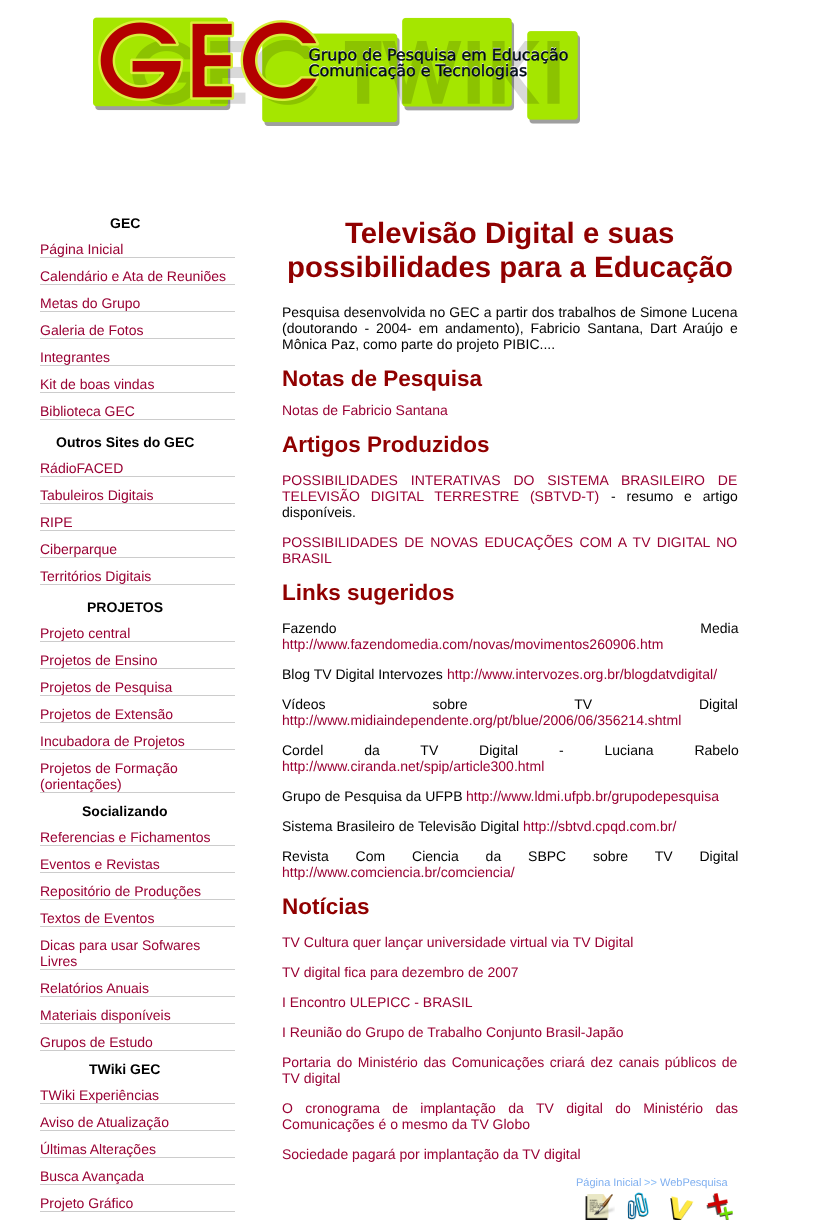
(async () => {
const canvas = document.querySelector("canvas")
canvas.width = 820
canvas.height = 1232
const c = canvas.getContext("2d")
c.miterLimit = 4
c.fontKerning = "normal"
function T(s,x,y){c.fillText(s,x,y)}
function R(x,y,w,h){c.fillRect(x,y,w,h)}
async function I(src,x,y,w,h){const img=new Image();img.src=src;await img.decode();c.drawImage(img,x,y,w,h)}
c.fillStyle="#fff"
R(0,0,820,1232)
await I("1.png",93,17,487,109)
c.font="bold 14px Liberation Sans"
c.fillStyle="#000"
T("GEC",110,228)
c.fillStyle="#ccc"
R(40,257,195,1)
c.font="14px Liberation Sans"
c.fillStyle="#903"
T("Página Inicial",40,254)
c.fillStyle="#ccc"
R(40,284,195,1)
c.fillStyle="#903"
T("Calendário e Ata de Reuniões",40,281)
c.fillStyle="#ccc"
R(40,311,195,1)
c.fillStyle="#903"
T("Metas do Grupo",40,308)
c.fillStyle="#ccc"
R(40,338,195,1)
c.fillStyle="#903"
T("Galeria de Fotos",40,335)
c.fillStyle="#ccc"
R(40,365,195,1)
c.fillStyle="#903"
T("Integrantes",40,362)
c.fillStyle="#ccc"
R(40,392,195,1)
c.fillStyle="#903"
T("Kit de boas vindas",40,389)
c.fillStyle="#ccc"
R(40,419,195,1)
c.fillStyle="#903"
T("Biblioteca GEC",40,416)
c.font="bold 14px Liberation Sans"
c.fillStyle="#000"
T("Outros Sites do GEC",56,447)
c.fillStyle="#ccc"
R(40,476,195,1)
c.font="14px Liberation Sans"
c.fillStyle="#903"
T("RádioFACED",40,473)
c.fillStyle="#ccc"
R(40,503,195,1)
c.fillStyle="#903"
T("Tabuleiros Digitais",40,500)
c.fillStyle="#ccc"
R(40,530,195,1)
c.fillStyle="#903"
T("RIPE",40,527)
c.fillStyle="#ccc"
R(40,557,195,1)
c.fillStyle="#903"
T("Ciberparque",40,554)
c.fillStyle="#ccc"
R(40,584,195,1)
c.fillStyle="#903"
T("Territórios Digitais",40,581)
c.font="bold 14px Liberation Sans"
c.fillStyle="#000"
T("PROJETOS",87,612)
c.fillStyle="#ccc"
R(40,641,195,1)
c.font="14px Liberation Sans"
c.fillStyle="#903"
T("Projeto central",40,638)
c.fillStyle="#ccc"
R(40,668,195,1)
c.fillStyle="#903"
T("Projetos de Ensino",40,665)
c.fillStyle="#ccc"
R(40,695,195,1)
c.fillStyle="#903"
T("Projetos de Pesquisa",40,692)
c.fillStyle="#ccc"
R(40,722,195,1)
c.fillStyle="#903"
T("Projetos de Extensão",40,719)
c.fillStyle="#ccc"
R(40,749,195,1)
c.fillStyle="#903"
T("Incubadora de Projetos",40,746)
c.fillStyle="#ccc"
R(40,792,195,1)
c.fillStyle="#903"
T("Projetos de Formação",40,773)
T("(orientações)",40,789)
c.font="bold 14px Liberation Sans"
c.fillStyle="#000"
T("Socializando",82,816)
c.fillStyle="#ccc"
R(40,845,195,1)
c.font="14px Liberation Sans"
c.fillStyle="#903"
T("Referencias e Fichamentos",40,842)
c.fillStyle="#ccc"
R(40,872,195,1)
c.fillStyle="#903"
T("Eventos e Revistas",40,869)
c.fillStyle="#ccc"
R(40,899,195,1)
c.fillStyle="#903"
T("Repositório de Produções",40,896)
c.fillStyle="#ccc"
R(40,926,195,1)
c.fillStyle="#903"
T("Textos de Eventos",40,923)
c.fillStyle="#ccc"
R(40,969,195,1)
c.fillStyle="#903"
T("Dicas para usar Sofwares",40,950)
T("Livres",40,966)
c.fillStyle="#ccc"
R(40,996,195,1)
c.fillStyle="#903"
T("Relatórios Anuais",40,993)
c.fillStyle="#ccc"
R(40,1023,195,1)
c.fillStyle="#903"
T("Materiais disponíveis",40,1020)
c.fillStyle="#ccc"
R(40,1050,195,1)
c.fillStyle="#903"
T("Grupos de Estudo",40,1047)
c.font="bold 14px Liberation Sans"
c.fillStyle="#000"
T("TWiki GEC",89,1074)
c.fillStyle="#ccc"
R(40,1103,195,1)
c.font="14px Liberation Sans"
c.fillStyle="#903"
T("TWiki Experiências",40,1100)
c.fillStyle="#ccc"
R(40,1130,195,1)
c.fillStyle="#903"
T("Aviso de Atualização",40,1127)
c.fillStyle="#ccc"
R(40,1157,195,1)
c.fillStyle="#903"
T("Últimas Alterações",40,1154)
c.fillStyle="#ccc"
R(40,1184,195,1)
c.fillStyle="#903"
T("Busca Avançada",40,1181)
c.fillStyle="#ccc"
R(40,1211,195,1)
c.fillStyle="#903"
T("Projeto Gráfico",40,1208)
c.font="bold 29.4px Liberation Sans"
c.fillStyle="#900000"
T("Televisão Digital e suas",345,243)
T("possibilidades para a Educação",287,277)
c.wordSpacing="0.25px"
c.font="14px Liberation Sans"
c.fillStyle="#000"
T("Pesquisa desenvolvida no GEC a partir dos trabalhos de Simone Lucena",282,317)
c.wordSpacing="3px"
T("(doutorando - 2004- em andamento), Fabricio Santana, Dart Araújo e",282,333)
c.wordSpacing="0px"
T("Mônica Paz, como parte do projeto PIBIC....",282,349)
c.font="bold 22.5px Liberation Sans"
c.fillStyle="#900000"
T("Notas de Pesquisa",282,386)
c.font="14px Liberation Sans"
c.fillStyle="#903"
T("Notas de Fabricio Santana",282,415)
c.font="bold 22.5px Liberation Sans"
c.fillStyle="#900000"
T("Artigos Produzidos",282,452)
c.wordSpacing="9px"
c.font="14px Liberation Sans"
c.fillStyle="#903"
T("POSSIBILIDADES INTERATIVAS DO SISTEMA BRASILEIRO DE",282,485)
c.wordSpacing="7px"
T("TELEVISÃO DIGITAL TERRESTRE (SBTVD-T)",282,501)
c.fillStyle="#000"
T("- resumo e artigo",611,501)
c.wordSpacing="0px"
T("disponíveis.",282,517)
c.wordSpacing="2.5px"
c.fillStyle="#903"
T("POSSIBILIDADES DE NOVAS EDUCAÇÕES COM A TV DIGITAL NO",282,547)
c.wordSpacing="0px"
T("BRASIL",282,563)
c.font="bold 22.5px Liberation Sans"
c.fillStyle="#900000"
T("Links sugeridos",282,600)
c.wordSpacing="360px"
c.font="14px Liberation Sans"
c.fillStyle="#000"
T("Fazendo Media",282,633)
c.wordSpacing="0px"
c.fillStyle="#903"
T("http://www.fazendomedia.com/novas/movimentos260906.htm",282,649)
c.fillStyle="#000"
T("Blog TV Digital Intervozes",282,679)
c.fillStyle="#903"
T("http://www.intervozes.org.br/blogdatvdigital/",447,679)
c.wordSpacing="103px"
c.fillStyle="#000"
T("Vídeos sobre TV Digital",282,709)
c.wordSpacing="0px"
c.fillStyle="#903"
T("http://www.midiaindependente.org/pt/blue/2006/06/356214.shtml",282,725)
c.wordSpacing="37px"
c.fillStyle="#000"
T("Cordel da TV Digital - Luciana Rabelo",282,755)
c.wordSpacing="0px"
c.fillStyle="#903"
T("http://www.ciranda.net/spip/article300.html",282,771)
c.fillStyle="#000"
T("Grupo de Pesquisa da UFPB",282,801)
c.fillStyle="#903"
T("http://www.ldmi.ufpb.br/grupodepesquisa",466,801)
c.fillStyle="#000"
T("Sistema Brasileiro de Televisão Digital",282,831)
c.fillStyle="#903"
T("http://sbtvd.cpqd.com.br/",523,831)
c.wordSpacing="23px"
c.fillStyle="#000"
T("Revista Com Ciencia da SBPC sobre TV Digital",282,861)
c.wordSpacing="0px"
c.fillStyle="#903"
T("http://www.comciencia.br/comciencia/",282,877)
c.font="bold 22.5px Liberation Sans"
c.fillStyle="#900000"
T("Notícias",282,914)
c.font="14px Liberation Sans"
c.fillStyle="#903"
T("TV Cultura quer lançar universidade virtual via TV Digital",282,947)
T("TV digital fica para dezembro de 2007",282,977)
T("I Encontro ULEPICC - BRASIL",282,1007)
T("I Reunião do Grupo de Trabalho Conjunto Brasil-Japão",282,1037)
c.wordSpacing="1.75px"
T("Portaria do Ministério das Comunicações criará dez canais públicos de",282,1067)
c.wordSpacing="0px"
T("TV digital",282,1083)
c.wordSpacing="8.5px"
T("O cronograma de implantação da TV digital do Ministério das",282,1113)
c.wordSpacing="0px"
T("Comunicações é o mesmo da TV Globo",282,1129)
T("Sociedade pagará por implantação da TV digital",282,1159)
c.font="11px Liberation Sans"
c.fillStyle="#80b0f0"
T("Página Inicial",576,1186)
c.fillStyle="#90c0f8"
T(">>",644,1186)
c.fillStyle="#80b0f0"
T("WebPesquisa",660,1186)
await I("2.png",585,1194,30,26)
await I("3.png",627,1192,22,28)
await I("4.png",670,1196,24,24)
await I("5.png",706,1193,27,27)
})()
